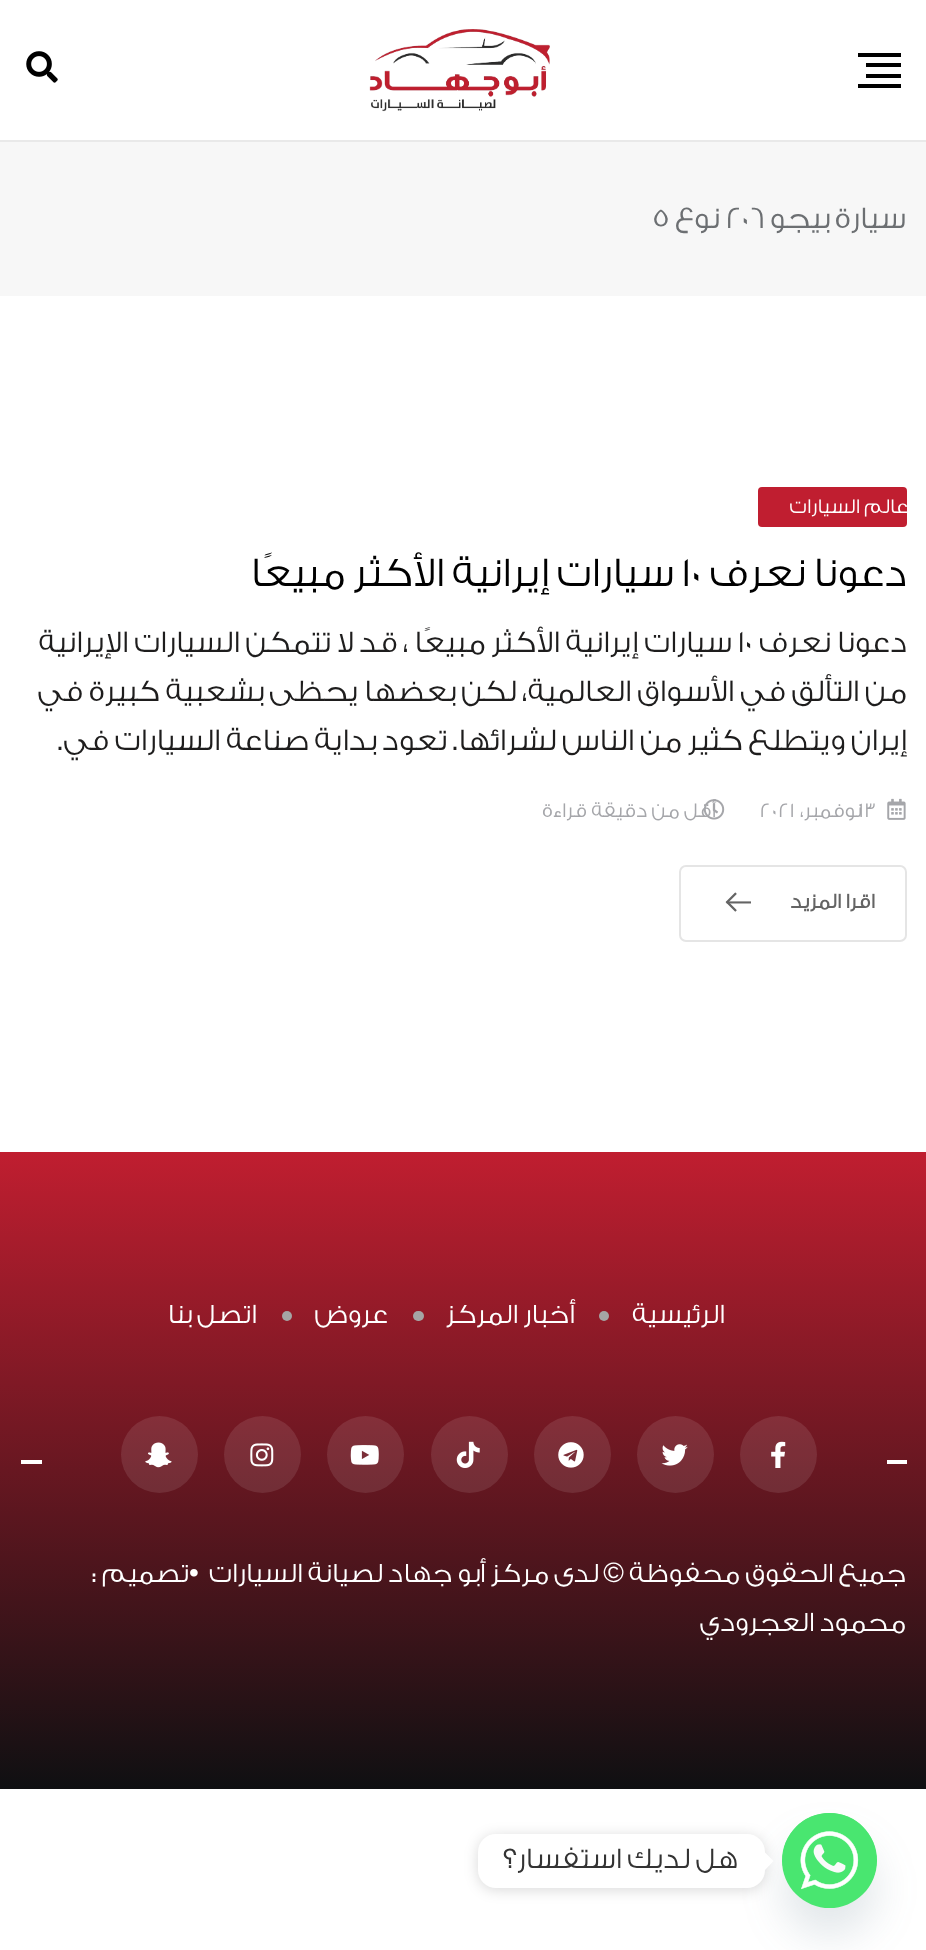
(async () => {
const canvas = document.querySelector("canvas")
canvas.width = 926
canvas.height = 1950
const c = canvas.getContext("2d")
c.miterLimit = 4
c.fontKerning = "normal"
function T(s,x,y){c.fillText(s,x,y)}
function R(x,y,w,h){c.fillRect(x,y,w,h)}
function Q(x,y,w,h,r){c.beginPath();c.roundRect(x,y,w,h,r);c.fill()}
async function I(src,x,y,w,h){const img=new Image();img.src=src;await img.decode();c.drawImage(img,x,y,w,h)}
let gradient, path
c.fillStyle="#fff"
R(0,0,926,1950)
c.fillStyle="#e9e9e9"
R(0,140,926,2)
c.fillStyle="#000"
R(858,53,43,4)
R(866,63,35,4)
R(866,74,35,4)
R(858,84,43,4)
await I("1.png",369,29,181,83)
await I("2.png",26,51,32,32)
c.fillStyle="#f7f7f7"
R(0,142,926,154)
c.direction="rtl"
c.font="300 31.5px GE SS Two"
c.fillStyle="#6c6f72"
T("سيارة بيجو",906,228)
c.direction="ltr"
T("206",726,228)
c.direction="rtl"
T("نوع",720,228)
c.direction="ltr"
T("5",652,228)
c.fillStyle="#c01e30"
Q(758,487,149,40,4)
c.letterSpacing="1.4px"
c.wordSpacing="-1px"
c.direction="rtl"
c.font="300 21px GE SS Two"
c.fillStyle="#fff"
T("عالم السيارات",908,513)
c.letterSpacing="0px"
c.wordSpacing="0px"
c.font="300 42px GE SS Two"
c.fillStyle="#000"
T("دعونا نعرف",907,586)
c.direction="ltr"
T("10",682,586)
c.direction="rtl"
T("سيارات إيرانية الأكثر مبيعًا",674,586)
c.font="300 31.5px GE SS Two"
c.fillStyle="#1e1d1d"
T("دعونا نعرف",907,652)
c.direction="ltr"
T("10",738,652)
c.direction="rtl"
T("سيارات إيرانية الأكثر مبيعًا ، قد لا تتمكن السيارات الإيرانية",732,652)
T("من التألق في الأسواق العالمية، لكن بعضها يحظى بشعبية كبيرة في",907,701)
T("إيران ويتطلع كثير من الناس لشرائها. تعود بداية صناعة السيارات في.",907,750)
await I("3.png",887,798,19,22)
c.letterSpacing="1.4px"
c.direction="ltr"
c.font="300 21px GE SS Two"
c.fillStyle="#a5a6aa"
T("13",859,817)
T("2021",760,817)
c.direction="rtl"
T("نوفمبر،",862,817)
await I("4.png",703,799,22,21)
c.wordSpacing="-1px"
T("أقل من دقيقة قراءة",716,817)
c.beginPath()
c.roundRect(680,866,226,75,6)
c.strokeStyle="#e5e5e5"
c.lineWidth=2
c.stroke()
c.font="bold 21px GE SS Two"
c.fillStyle="#646464"
T("اقرا المزيد",875,908)
await I("5.png",725,892,26,20)
gradient = c.createLinearGradient(464,1152,464,1789)
gradient.addColorStop(0,"#c01e30")
gradient.addColorStop(1,"#0f1012")
c.fillStyle = gradient
R(0,1152,926,637)
c.letterSpacing="0px"
c.wordSpacing="0px"
c.font="300 28px GE SS Two"
c.fillStyle="#fff"
T("الرئيسية",725,1323)
c.fillStyle="#a5a5a5"
c.beginPath()
c.arc(604,1316,5,0,7)
c.fill()
c.fillStyle="#fff"
T("أخبار المركز",575,1323)
c.fillStyle="#a5a5a5"
Q(413,1311,11,10,5)
c.fillStyle="#fff"
T("عروض",388,1323)
c.fillStyle="#a5a5a5"
c.beginPath()
c.arc(287,1316,5,0,7)
c.fill()
c.fillStyle="#fff"
T("اتصل بنا",257,1323)
R(887,1460,20,4)
c.fillStyle="#ffffff1a"
c.beginPath()
c.arc(778.5,1454.5,38.5,0,7)
c.fill()
await I("6.png",771,1441,15,27)
c.beginPath()
c.arc(675.5,1454.5,38.5,0,7)
c.fill()
await I("7.png",661,1444,27,22)
c.beginPath()
c.arc(572.5,1454.5,38.5,0,7)
c.fill()
await I("8.png",558,1442,26,26)
c.beginPath()
c.arc(469.5,1454.5,38.5,0,7)
c.fill()
await I("9.png",456,1441,24,27)
c.beginPath()
c.arc(365.5,1454.5,38.5,0,7)
c.fill()
await I("10.png",350,1445,29,20)
c.beginPath()
c.arc(262.5,1454.5,38.5,0,7)
c.fill()
await I("11.png",250,1443,24,24)
c.beginPath()
c.arc(159.5,1454.5,38.5,0,7)
c.fill()
await I("12.png",145,1442,27,26)
c.fillStyle="#fff"
R(21,1460,21,4)
T("جميع الحقوق محفوظة",906,1582)
c.font="28px Liberation Sans"
T("©",624,1582)
c.font="300 28px GE SS Two"
T("لدى",599,1582)
T("مركز أبو جهاد لصيانة السيارات",549,1582)
c.direction="ltr"
c.font="28px Liberation Sans"
T("•",189,1582)
c.direction="rtl"
c.font="300 28px GE SS Two"
T("تصميم",189,1582)
c.direction="ltr"
T(":",92,1582)
c.direction="rtl"
T("محمود العجرودي",906,1631)
c.fillStyle="#49687e29"
c.filter="blur(21px)"
c.beginPath()
c.roundRect(782,1841,95,95,47.5)
c.fill()
c.filter="none"
c.fillStyle="#49e670"
c.beginPath()
c.arc(829.5,1860.5,47.5,0,7)
c.fill()
await I("13.png",782,1813,95,77)
c.fillStyle="#00000026"
c.filter="blur(7px)"
c.beginPath()
c.roundRect(478,1836,287,54,18)
c.fill()
c.filter="none"
c.fillStyle="#fff"
Q(478,1834,287,54,18)
path = new Path2D("M765 1870v-17.5l8.5 8.5z")
c.fill(path)
c.font="300 29.75px GE SS Two"
c.fillStyle="#333"
T("هل لديك استفسار؟",738,1868)
})()
